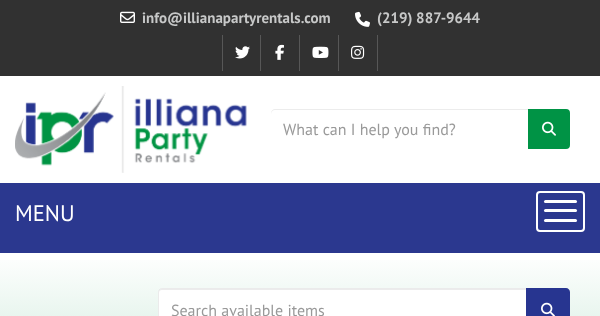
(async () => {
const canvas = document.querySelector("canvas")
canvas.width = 600
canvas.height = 316
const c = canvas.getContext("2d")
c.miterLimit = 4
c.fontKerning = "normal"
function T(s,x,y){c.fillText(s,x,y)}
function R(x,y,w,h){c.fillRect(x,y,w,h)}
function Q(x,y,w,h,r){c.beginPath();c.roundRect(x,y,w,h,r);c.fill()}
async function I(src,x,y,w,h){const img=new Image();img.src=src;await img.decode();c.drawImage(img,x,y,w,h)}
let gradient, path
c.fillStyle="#fff"
R(0,0,600,316)
c.fillStyle="#313131"
R(0,0,600,76)
await I("1.png",120,11,15,12)
c.font="bold 15px PT Sans"
c.fillStyle="#c7c8c8"
T("info@illianapartyrentals.com",142,23)
await I("2.png",355,11,15,16)
T("(219) 887-9644",377,23)
c.fillStyle="#575757"
R(260,35,1,36)
R(222,35,1,36)
await I("3.png",235,46,15,13)
R(299,35,1,36)
await I("4.png",275,44,9,16)
R(338,35,1,36)
await I("5.png",312,46,17,12)
R(377,35,1,36)
await I("6.png",351,45,14,14)
await I("7.png",15,86,232,87)
c.fillStyle="#ececec"
path = new Path2D("M275 110h254v-1h-254c-2 0-4 2-4 4v1c0-2 2-4 4-4z")
c.fill(path)
c.font="16px PT Sans"
c.fillStyle="#999"
T("What can I help you find?",283,135)
c.fillStyle="#009345"
c.beginPath()
c.roundRect(529,110,40,38,[0,3,3,0])
c.fill()
c.strokeStyle="#009345"
c.lineWidth=2
c.stroke()
await I("8.png",542,121,14,15)
c.fillStyle="#2b388f"
R(0,183,600,70)
c.font="22.5px PT Sans"
c.fillStyle="#fff"
T("MENU",15,221)
c.beginPath()
c.roundRect(537,192,47,39,3)
c.strokeStyle="#fff"
c.stroke()
Q(544,200,33,3,1.5)
Q(544,209,33,3,1.5)
Q(544,219,33,3,1.5)
gradient = c.createLinearGradient(300,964,300,253)
gradient.addColorStop(0,"#009443")
gradient.addColorStop(1,"#fff")
c.fillStyle = gradient
R(0,260,600,56)
c.fillStyle="#fff"
path = new Path2D("M162 288h365v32h-365c-2 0-4-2-4-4v-24c0-2 2-4 4-4z")
c.fill(path)
c.fillStyle="#ececec"
path = new Path2D("M162 290h364v-1h-364c-2 0-3 1-3 3v1c0-2 1-3 3-3z")
c.fill(path)
path = new Path2D("M162 288.5h364.5v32h-364.5c-2 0-3.5-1.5-3.5-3.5v-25c0-2 1.5-3.5 3.5-3.5z")
c.strokeStyle="#00000014"
c.lineWidth=1
c.stroke(path)
c.font="16px PT Sans"
c.fillStyle="#999"
T("Search available items",171,316)
c.fillStyle="#273590"
path = new Path2D("M526 288h40c2 0 4 2 4 4v24c0 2-2 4-4 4h-40z")
c.fill(path)
await I("9.png",541,302,14,14)
})()
